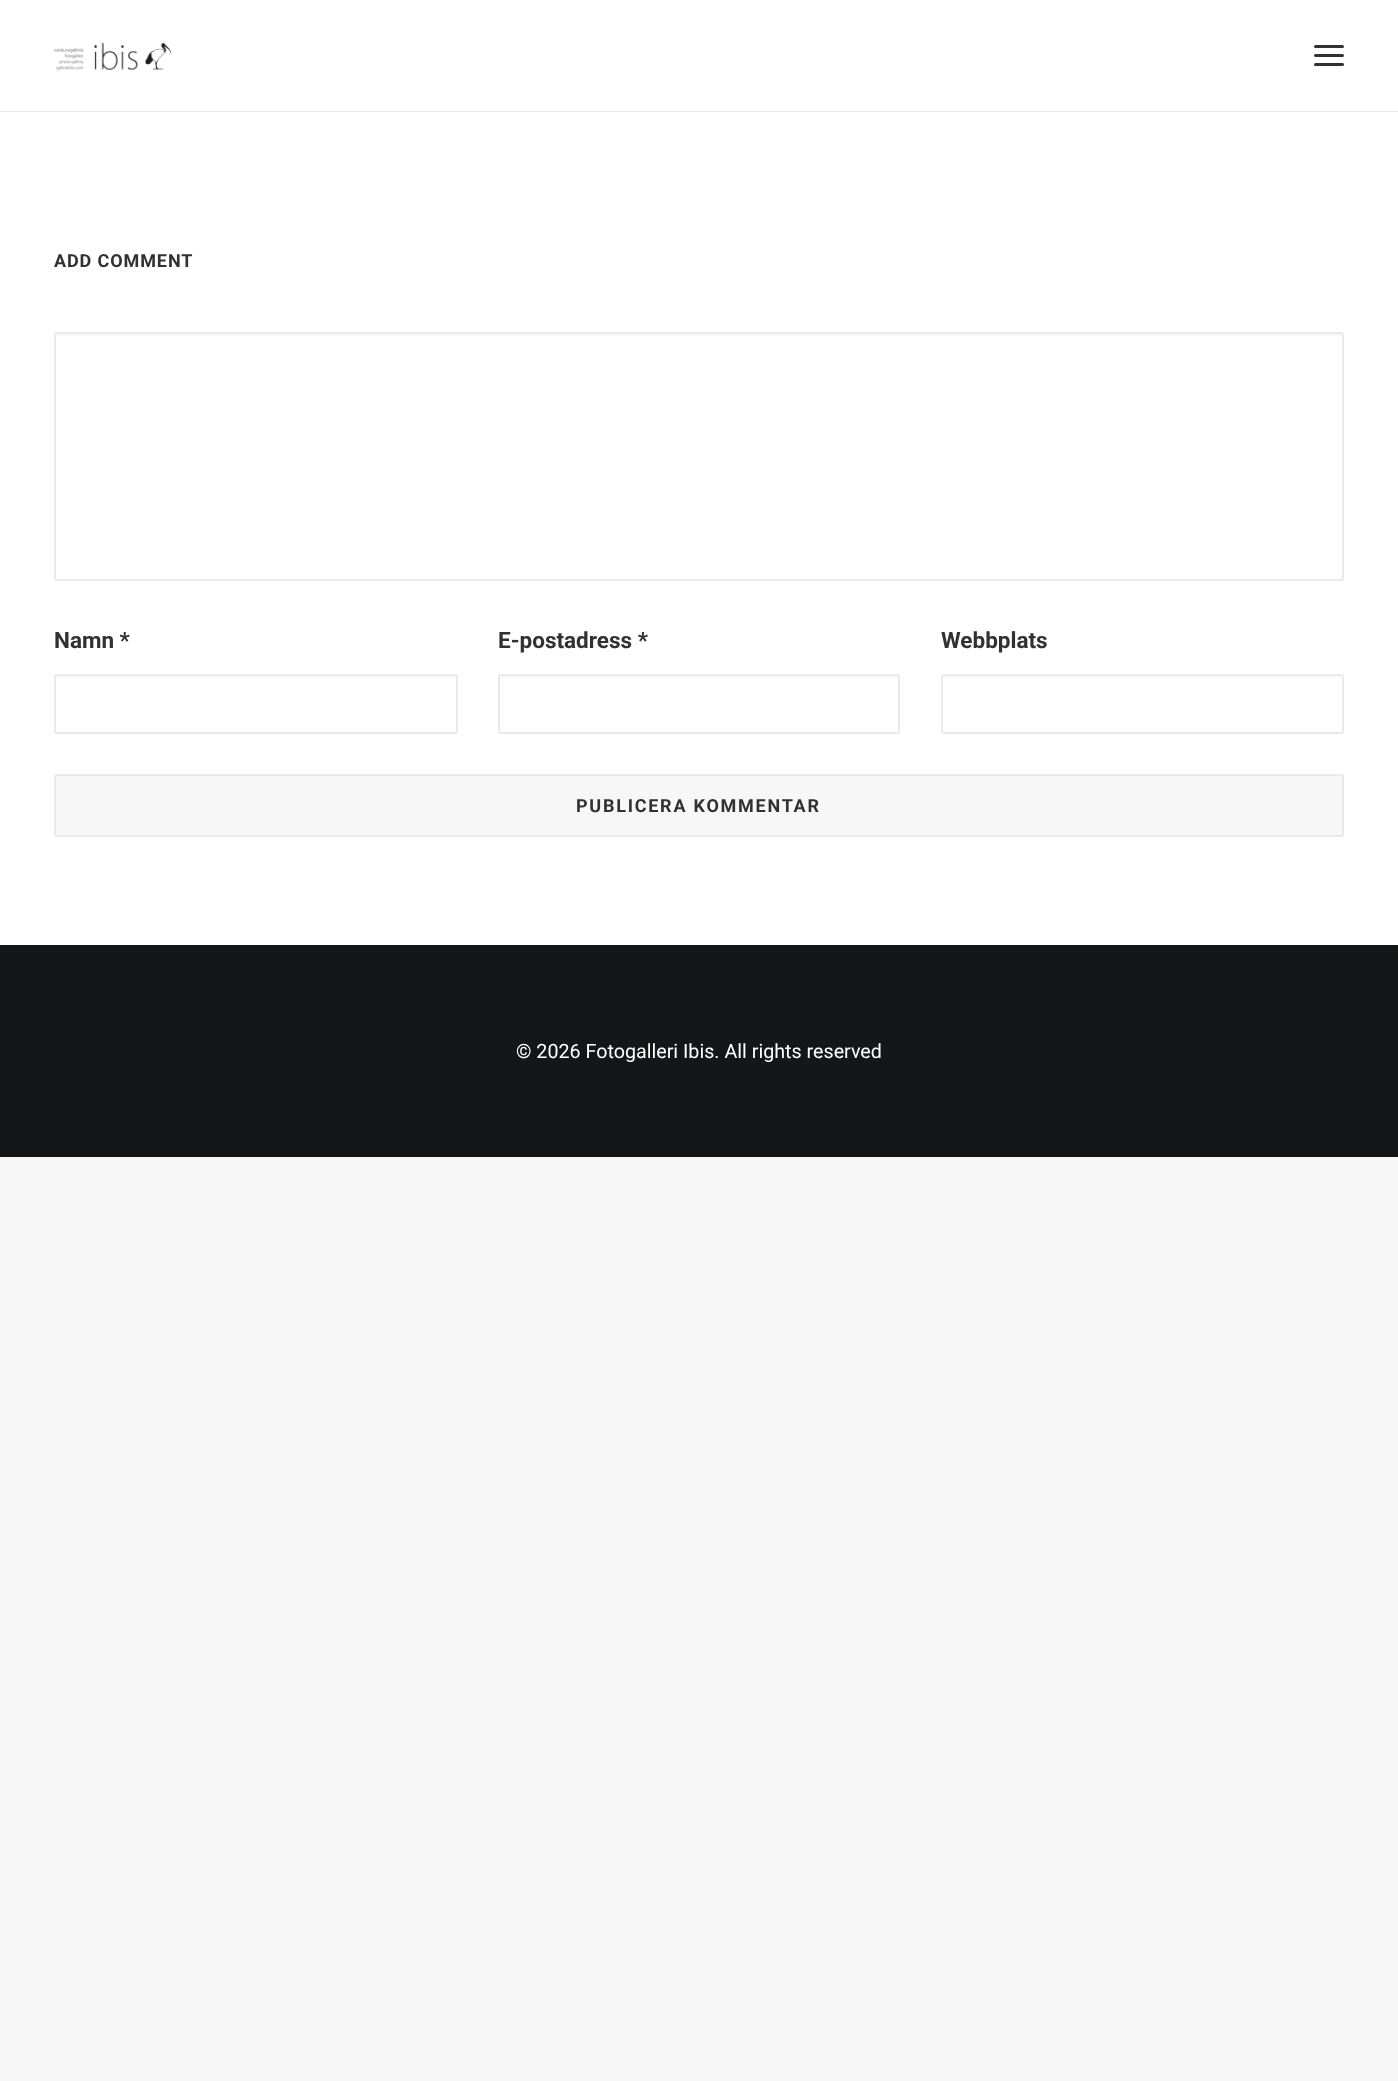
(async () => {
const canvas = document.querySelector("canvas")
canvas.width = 1398
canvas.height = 2081
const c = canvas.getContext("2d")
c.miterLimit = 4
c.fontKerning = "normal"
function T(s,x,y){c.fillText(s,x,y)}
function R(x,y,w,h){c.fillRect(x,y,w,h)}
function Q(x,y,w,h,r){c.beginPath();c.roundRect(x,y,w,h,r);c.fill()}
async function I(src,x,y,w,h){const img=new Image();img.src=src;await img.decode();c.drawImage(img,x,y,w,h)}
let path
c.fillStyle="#f7f7f7"
R(0,0,1398,2081)
c.fillStyle="#fff"
R(0,0,1398,111)
await I("1.png",54,42,117,29)
c.fillStyle="#303133"
Q(1314,54,30,3,1.5)
Q(1314,45,30,3,1.5)
Q(1314,63,30,3,1.5)
c.fillStyle="#fff"
R(0,112,1398,833)
c.fillStyle="#eaeaea"
R(0,111,1398,1)
c.letterSpacing="0.9px"
c.font="bold 18px Roboto"
c.fillStyle="#303133"
T("ADD COMMENT",54,267)
c.fillStyle="#f9f9f9"
path = new Path2D("M57 336h1284c1 0 1 1 1 2v241l1-1v-244c0 0-1-1-1-1h-1285c-2 1-1 4-1 5c0-1 0-2 1-2z")
c.fill(path)
c.beginPath()
c.roundRect(55,333,1288,247,2)
c.strokeStyle="#eaeaea"
c.lineWidth=2
c.stroke()
c.letterSpacing="0px"
c.font="bold 22.5px Roboto"
c.fillStyle="#303133"
T("Namn *",54,648)
c.fillStyle="#f9f9f9"
path = new Path2D("M57 678h397c1 0 2 1 2 2c0-1 1-5-2-5h-397c-2 0-1 4-1 5c0-1 0-2 1-2z")
c.fill(path)
c.beginPath()
c.roundRect(55,675,402,58,2)
c.stroke()
c.fillStyle="#303133"
T("E-postadress *",498,648)
c.fillStyle="#f9f9f9"
path = new Path2D("M501 678h396c1 0 1 1 1 2v52c1 0 1-1 1-2v-54c0 0-1-1-1-1h-396c-1 0-2 1-2 1v4c0-1 0-2 1-2z")
c.fill(path)
c.beginPath()
c.roundRect(499,675,400,58,2)
c.stroke()
c.fillStyle="#303133"
T("Webbplats",941,648)
c.fillStyle="#f9f9f9"
path = new Path2D("M944 678h397c1 0 1 1 1 2v52c1 0 1-1 1-2v-54c0 0-1-1-1-1h-398c-1 0-2 1-2 1v4c0-1 1-2 2-2z")
c.fill(path)
c.beginPath()
c.roundRect(942,675,401,58,2)
c.stroke()
c.fillStyle="#f7f7f7"
c.beginPath()
c.roundRect(55,775,1288,61,2)
c.fill()
c.stroke()
c.letterSpacing="1.75px"
c.font="bold 18px Roboto"
c.fillStyle="#303133"
T("PUBLICERA KOMMENTAR",576,812)
c.fillStyle="#141618"
R(0,945,1398,212)
c.letterSpacing="0px"
c.font="19.7px Roboto"
c.fillStyle="#fff"
T("© 2026 Fotogalleri Ibis. All rights reserved",516,1058)
})()
